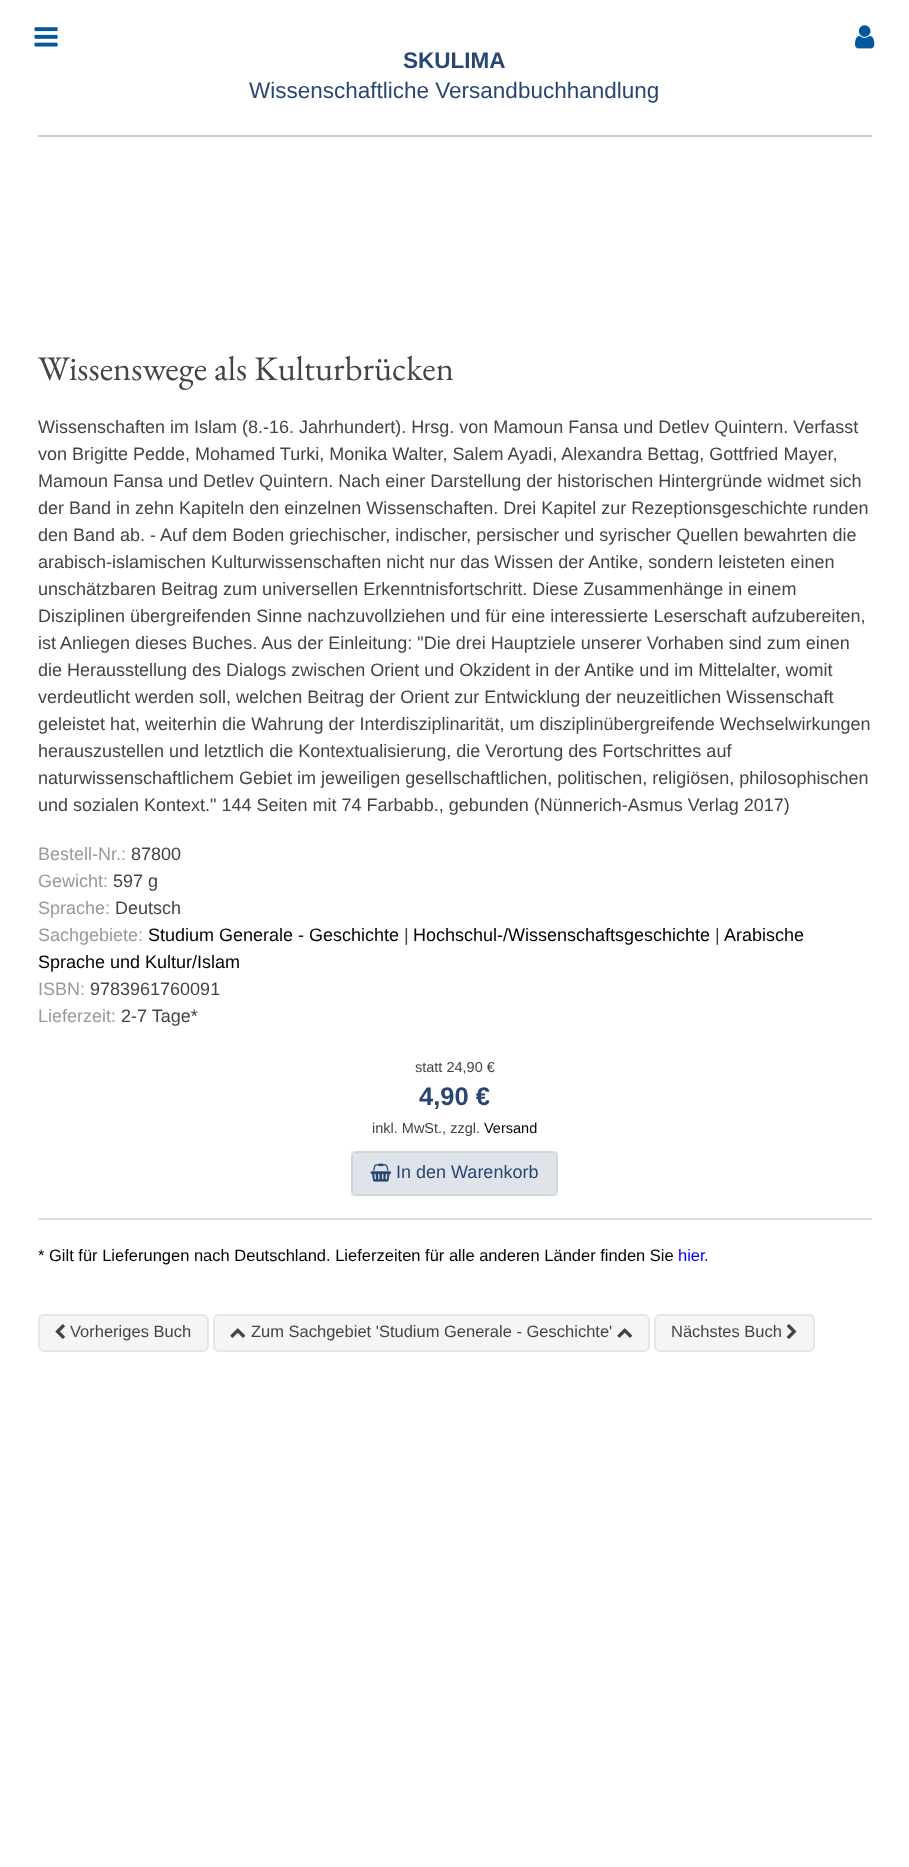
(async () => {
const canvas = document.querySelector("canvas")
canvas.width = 909
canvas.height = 1867
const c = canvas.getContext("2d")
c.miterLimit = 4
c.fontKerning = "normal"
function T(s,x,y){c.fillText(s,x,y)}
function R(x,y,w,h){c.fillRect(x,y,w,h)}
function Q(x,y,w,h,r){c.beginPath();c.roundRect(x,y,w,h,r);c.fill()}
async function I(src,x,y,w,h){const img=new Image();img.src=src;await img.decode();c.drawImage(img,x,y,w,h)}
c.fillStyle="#fff"
R(0,0,909,1867)
await I("1.png",34,27,24,20)
await I("2.png",855,25,20,24)
c.fillStyle="#ccc"
R(38,135,834,2)
c.font="bold 22.5px Liberation Sans"
c.fillStyle="#294673"
T("SKULIMA",403,68)
c.font="22.5px Liberation Sans"
T("Wissenschaftliche Versandbuchhandlung",249,98)
c.font="34.5px EB Garamond"
c.fillStyle="#444"
T("Wissenswege als Kulturbrücken",38,380)
c.font="18px Liberation Sans"
T("Wissenschaften im Islam (8.-16. Jahrhundert). Hrsg. von Mamoun Fansa und Detlev Quintern. Verfasst",38,433)
T("von Brigitte Pedde, Mohamed Turki, Monika Walter, Salem Ayadi, Alexandra Bettag, Gottfried Mayer,",38,460)
T("Mamoun Fansa und Detlev Quintern. Nach einer Darstellung der historischen Hintergründe widmet sich",38,487)
T("der Band in zehn Kapiteln den einzelnen Wissenschaften. Drei Kapitel zur Rezeptionsgeschichte runden",38,514)
T("den Band ab. - Auf dem Boden griechischer, indischer, persischer und syrischer Quellen bewahrten die",38,541)
T("arabisch-islamischen Kulturwissenschaften nicht nur das Wissen der Antike, sondern leisteten einen",38,568)
T("unschätzbaren Beitrag zum universellen Erkenntnisfortschritt. Diese Zusammenhänge in einem",38,595)
T("Disziplinen übergreifenden Sinne nachzuvollziehen und für eine interessierte Leserschaft aufzubereiten,",38,622)
T("ist Anliegen dieses Buches. Aus der Einleitung: \"Die drei Hauptziele unserer Vorhaben sind zum einen",38,649)
T("die Herausstellung des Dialogs zwischen Orient und Okzident in der Antike und im Mittelalter, womit",38,676)
T("verdeutlicht werden soll, welchen Beitrag der Orient zur Entwicklung der neuzeitlichen Wissenschaft",38,703)
T("geleistet hat, weiterhin die Wahrung der Interdisziplinarität, um disziplinübergreifende Wechselwirkungen",38,730)
T("herauszustellen und letztlich die Kontextualisierung, die Verortung des Fortschrittes auf",38,757)
T("naturwissenschaftlichem Gebiet im jeweiligen gesellschaftlichen, politischen, religiösen, philosophischen",38,784)
T("und sozialen Kontext.\" 144 Seiten mit 74 Farbabb., gebunden (Nünnerich-Asmus Verlag 2017)",38,811)
c.fillStyle="#999"
T("Bestell-Nr.:",38,860)
c.fillStyle="#444"
T("87800",131,860)
c.fillStyle="#999"
T("Gewicht:",38,887)
c.fillStyle="#444"
T("597 g",113,887)
c.fillStyle="#999"
T("Sprache:",38,914)
c.fillStyle="#444"
T("Deutsch",115,914)
c.fillStyle="#999"
T("Sachgebiete:",38,941)
c.fillStyle="#000"
T("Studium Generale - Geschichte",148,941)
c.fillStyle="#444"
T("|",404,941)
c.fillStyle="#000"
T("Hochschul-/Wissenschaftsgeschichte",413,941)
c.fillStyle="#444"
T("|",715,941)
c.fillStyle="#000"
T("Arabische",724,941)
T("Sprache und Kultur/Islam",38,968)
c.fillStyle="#999"
T("ISBN:",38,995)
c.fillStyle="#444"
T("9783961760091",90,995)
c.fillStyle="#999"
T("Lieferzeit:",38,1022)
c.fillStyle="#444"
T("2-7 Tage*",121,1022)
c.font="14.5px Liberation Sans"
T("statt 24,90 €",415,1072)
c.font="bold 25.5px Liberation Sans"
c.fillStyle="#294673"
T("4,90 €",419,1105)
c.font="14.5px Liberation Sans"
c.fillStyle="#444"
T("inkl. MwSt., zzgl.",372,1133)
c.fillStyle="#000"
T("Versand",484,1133)
c.fillStyle="#dfe3ea"
Q(351,1151,207,45,6)
c.strokeStyle="#0000000f"
c.lineWidth=2
c.strokeRect(352,1152,205,43)
await I("3.png",370,1163,22,19)
c.font="18px Liberation Sans"
c.fillStyle="#294673"
T("In den Warenkorb",396,1178)
c.fillStyle="#ddd"
R(38,1218,834,2)
c.font="16.5px Liberation Sans"
c.fillStyle="#000"
T("* Gilt für Lieferungen nach Deutschland. Lieferzeiten für alle anderen Länder finden Sie",38,1261)
c.fillStyle="#00f"
T("hier",678,1261)
T(".",704,1261)
c.fillStyle="#f5f5f5"
c.beginPath()
c.roundRect(39,1315,169,36,5)
c.fill()
c.strokeStyle="#e6e6e6"
c.stroke()
await I("4.png",55,1324,10,15)
c.fillStyle="#444"
T("Vorheriges Buch",70,1337)
c.fillStyle="#f5f5f5"
c.beginPath()
c.roundRect(214,1315,435,36,5)
c.fill()
c.stroke()
await I("5.png",230,1328,16,10)
c.fillStyle="#444"
T("Zum Sachgebiet 'Studium Generale - Geschichte'",251,1337)
await I("5.png",617,1328,16,10)
c.fillStyle="#f5f5f5"
c.beginPath()
c.roundRect(655,1315,159,36,5)
c.fill()
c.stroke()
c.fillStyle="#444"
T("Nächstes Buch",671,1337)
await I("6.png",786,1324,11,15)
})()
